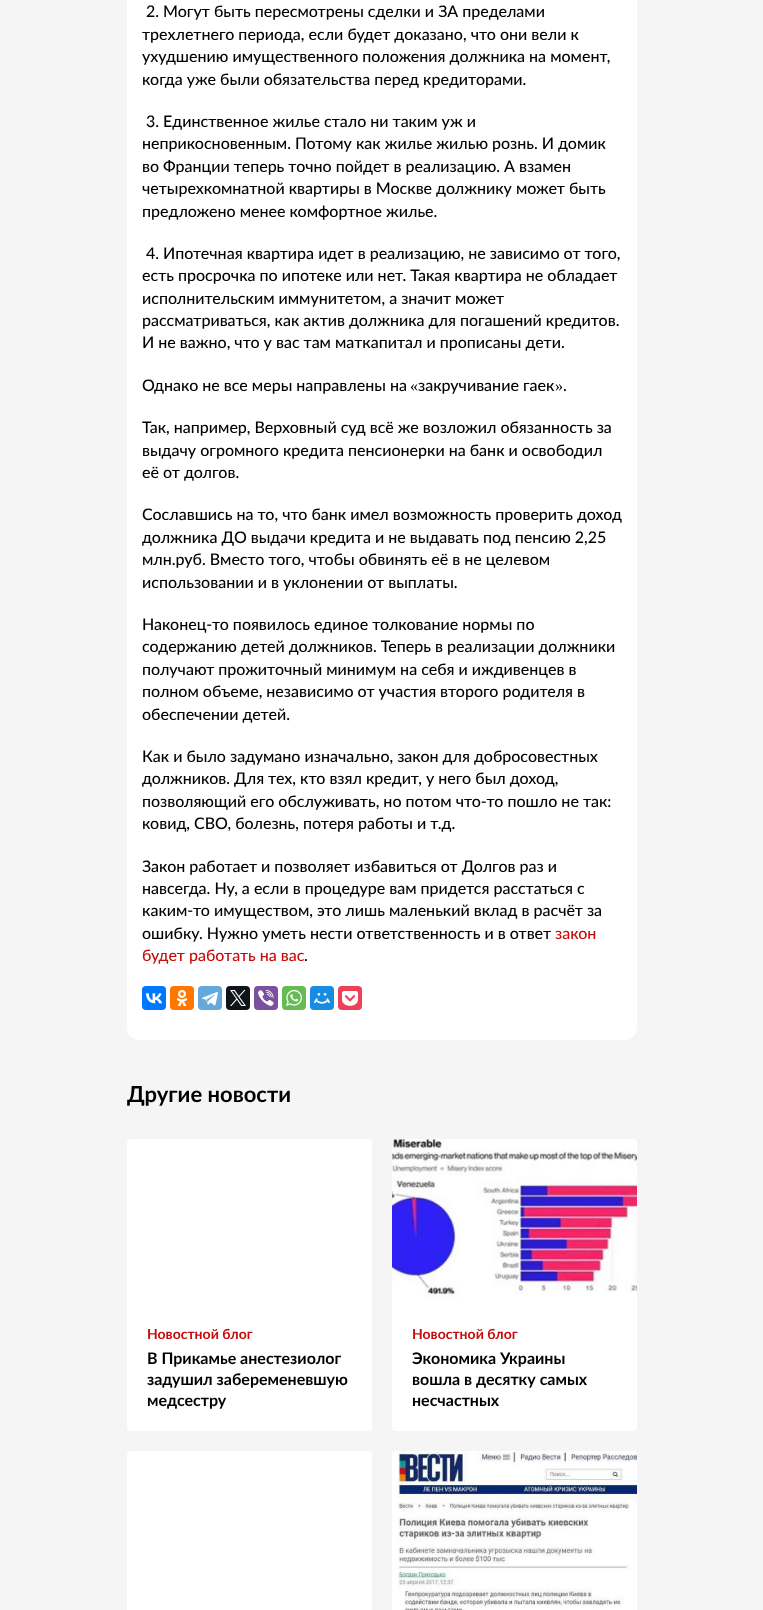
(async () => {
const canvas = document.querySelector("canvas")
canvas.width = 763
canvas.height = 1610
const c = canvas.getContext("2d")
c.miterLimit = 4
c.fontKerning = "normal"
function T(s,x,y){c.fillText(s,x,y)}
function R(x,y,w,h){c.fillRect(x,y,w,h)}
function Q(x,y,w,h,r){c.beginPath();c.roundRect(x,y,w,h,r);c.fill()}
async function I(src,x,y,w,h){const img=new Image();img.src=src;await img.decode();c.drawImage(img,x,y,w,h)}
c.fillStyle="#f5f5f5"
R(0,0,763,1610)
c.fillStyle="#fff"
Q(127,-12,510,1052,12)
c.font="500 16px Lato"
c.fillStyle="#000"
T("2. Могут быть пересмотрены сделки и ЗА пределами",146,17)
T("трехлетнего периода, если будет доказано, что они вели к",142,40)
T("ухудшению имущественного положения должника на момент,",142,62)
T("когда уже были обязательства перед кредиторами.",142,85)
T("3. Единственное жилье стало ни таким уж и",146,127)
T("неприкосновенным. Потому как жилье жилью рознь. И домик",142,149)
T("во Франции теперь точно пойдет в реализацию. А взамен",142,172)
T("четырехкомнатной квартиры в Москве должнику может быть",142,194)
T("предложено менее комфортное жилье.",142,217)
T("4. Ипотечная квартира идет в реализацию, не зависимо от того,",146,259)
T("есть просрочка по ипотеке или нет. Такая квартира не обладает",142,281)
T("исполнительским иммунитетом, а значит может",142,304)
T("рассматриваться, как актив должника для погашений кредитов.",142,326)
T("И не важно, что у вас там маткапитал и прописаны дети.",142,348)
T("Однако не все меры направлены на",142,391)
c.font="16px Liberation Serif"
T("«",410,391)
c.font="500 16px Lato"
T("закручивание гаек",418,391)
c.font="16px Liberation Serif"
T("»",555,391)
c.font="500 16px Lato"
T(".",563,391)
T("Так, например, Верховный суд всё же возложил обязанность за",142,433)
T("выдачу огромного кредита пенсионерки на банк и освободил",142,456)
T("её от долгов.",142,478)
T("Сославшись на то, что банк имел возможность проверить доход",142,520)
T("должника ДО выдачи кредита и не выдавать под пенсию 2,25",142,543)
T("млн.руб. Вместо того, чтобы обвинять её в не целевом",142,565)
T("использовании и в уклонении от выплаты.",142,588)
T("Наконец-то появилось единое толкование нормы по",142,630)
T("содержанию детей должников. Теперь в реализации должники",142,652)
T("получают прожиточный минимум на себя и иждивенцев в",142,675)
T("полном объеме, независимо от участия второго родителя в",142,697)
T("обеспечении детей.",142,720)
T("Как и было задумано изначально, закон для добросовестных",142,762)
T("должников. Для тех, кто взял кредит, у него был доход,",142,784)
T("позволяющий его обслуживать, но потом что-то пошло не так:",142,807)
T("ковид, СВО, болезнь, потеря работы и т.д.",142,829)
T("Закон работает и позволяет избавиться от Долгов раз и",142,872)
T("навсегда. Ну, а если в процедуре вам придется расстаться с",142,894)
T("каким-то имуществом, это лишь маленький вклад в расчёт за",142,916)
T("ошибку. Нужно уметь нести ответственность и в ответ",142,939)
c.fillStyle="#c60c0c"
T("закон",555,939)
T("будет работать на вас",142,961)
c.fillStyle="#000"
T(".",304,961)
c.fillStyle="#07f"
Q(142,986,24,24,4)
await I("1.png",146,993,16,11)
c.fillStyle="#f70"
Q(170,986,24,24,4)
await I("2.png",176,990,12,16)
c.fillStyle="#64a9dc"
Q(198,986,24,24,4)
await I("3.png",202,992,16,14)
c.fillStyle="#0f1419"
Q(226,986,24,24,4)
await I("4.png",230,990,16,16)
c.fillStyle="#7b519d"
Q(254,986,24,24,4)
await I("5.png",258,990,16,16)
c.fillStyle="#65bc54"
Q(282,986,24,24,4)
await I("6.png",286,990,16,16)
c.fillStyle="#168de2"
Q(310,986,24,24,4)
await I("7.png",314,993,16,11)
c.fillStyle="#ee4056"
Q(338,986,24,24,4)
await I("8.png",342,991,16,15)
c.font="bold 22px Lato"
c.fillStyle="#000"
T("Другие новости",127,1102)
c.fillStyle="#fff"
Q(127,1139,245,292,4)
c.font="bold 14px Lato"
c.fillStyle="#c60c0c"
T("Новостной блог",147,1339)
c.font="bold 16px Lato"
c.fillStyle="#000"
T("В Прикамье анестезиолог",147,1364)
T("задушил забеременевшую",147,1385)
T("медсестру",147,1406)
c.fillStyle="#fff"
Q(392,1139,245,292,4)
await I("9.png",392,1139,245,159)
c.font="bold 14px Lato"
c.fillStyle="#c60c0c"
T("Новостной блог",412,1339)
c.font="bold 16px Lato"
c.fillStyle="#000"
T("Экономика Украины",412,1364)
T("вошла в десятку самых",412,1385)
T("несчастных",412,1406)
c.fillStyle="#fff"
Q(127,1451,245,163,4)
Q(392,1451,245,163,4)
await I("10.png",398,1451,239,159)
})()
